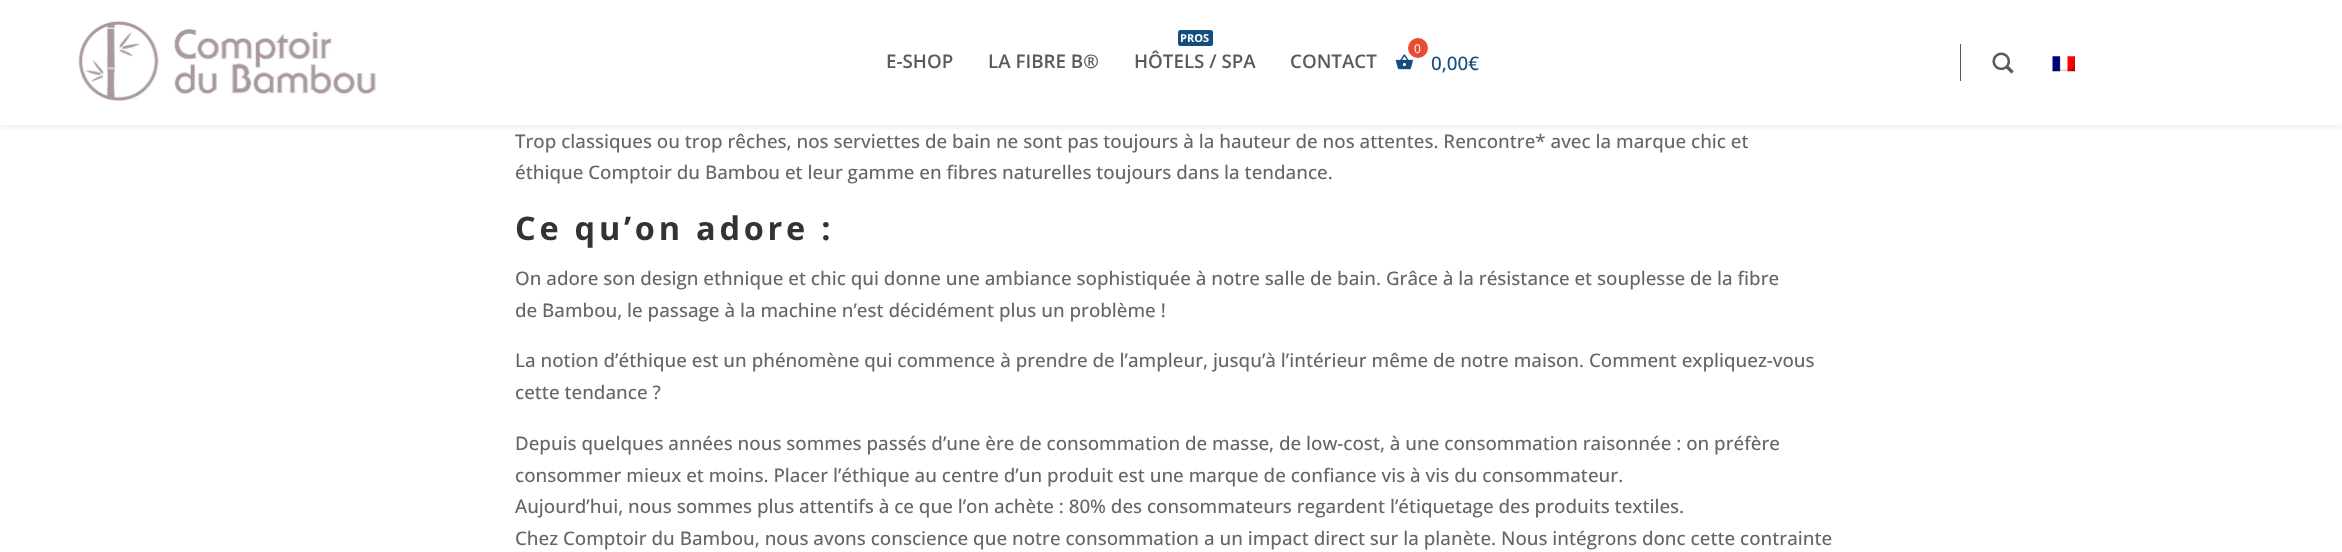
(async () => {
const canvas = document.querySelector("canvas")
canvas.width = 2342
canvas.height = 552
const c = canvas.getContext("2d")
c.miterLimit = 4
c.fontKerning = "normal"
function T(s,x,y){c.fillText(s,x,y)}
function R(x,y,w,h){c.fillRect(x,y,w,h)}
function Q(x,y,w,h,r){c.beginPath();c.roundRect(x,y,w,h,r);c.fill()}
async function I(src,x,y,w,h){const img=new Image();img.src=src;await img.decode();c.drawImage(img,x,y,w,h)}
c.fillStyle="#fff"
R(0,0,2342,552)
c.save()
c.beginPath()
c.rect(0,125,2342,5)
c.clip()
c.fillStyle="#0000001a"
c.filter="blur(6px)"
c.beginPath()
c.rect(0,0,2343,125)
c.fill()
c.filter="none"
c.restore()
await I("1.png",78,21,298,80)
c.font="600 18.75px Open Sans"
c.fillStyle="#5a5a5a"
T("E-SHOP",886,68)
T("LA FIBRE B®",988,68)
c.fillStyle="#154d7f"
Q(1178,30,35,16,2.5)
c.font="bold 11px Open Sans"
c.fillStyle="#fff"
T("PROS",1180,42)
c.font="600 18.75px Open Sans"
c.fillStyle="#5a5a5a"
T("HÔTELS / SPA",1134,68)
T("CONTACT",1290,68)
await I("2.png",1395,54,18,16)
c.fillStyle="#e94b35"
c.beginPath()
c.arc(1418,48,10,0,7)
c.fill()
c.font="12px Open Sans"
c.fillStyle="#fff"
T("0",1414,53)
c.font="500 18.75px Open Sans"
c.fillStyle="#154d7f"
T("0,00€",1431,70)
c.fillStyle="#5a5a5a"
R(1960,44,1,37)
await I("3.png",1992,52,22,22)
await I("4.png",2052,56,23,16)
c.fillStyle="#666"
T("Trop classiques ou trop rêches, nos serviettes de bain ne sont pas toujours à la hauteur de nos attentes. Rencontre* avec la marque chic et",515,148)
T("éthique Comptoir du Bambou et leur gamme en fibres naturelles toujours dans la tendance.",515,179)
c.letterSpacing="3.75px"
c.font="bold 32.5px Open Sans"
c.fillStyle="#333"
T("Ce qu’on adore :",515,240)
c.letterSpacing="0px"
c.font="500 18.75px Open Sans"
c.fillStyle="#666"
T("On adore son design ethnique et chic qui donne une ambiance sophistiquée à notre salle de bain. Grâce à la résistance et souplesse de la fibre",515,285)
T("de Bambou, le passage à la machine n’est décidément plus un problème !",515,317)
T("La notion d’éthique est un phénomène qui commence à prendre de l’ampleur, jusqu’à l’intérieur même de notre maison. Comment expliquez-vous",515,367)
T("cette tendance ?",515,399)
T("Depuis quelques années nous sommes passés d’une ère de consommation de masse, de low-cost, à une consommation raisonnée : on préfère",515,450)
T("consommer mieux et moins. Placer l’éthique au centre d’un produit est une marque de confiance vis à vis du consommateur.",515,482)
T("Aujourd’hui, nous sommes plus attentifs à ce que l’on achète : 80% des consommateurs regardent l’étiquetage des produits textiles.",515,513)
T("Chez Comptoir du Bambou, nous avons conscience que notre consommation a un impact direct sur la planète. Nous intégrons donc cette contrainte",515,545)
})()
